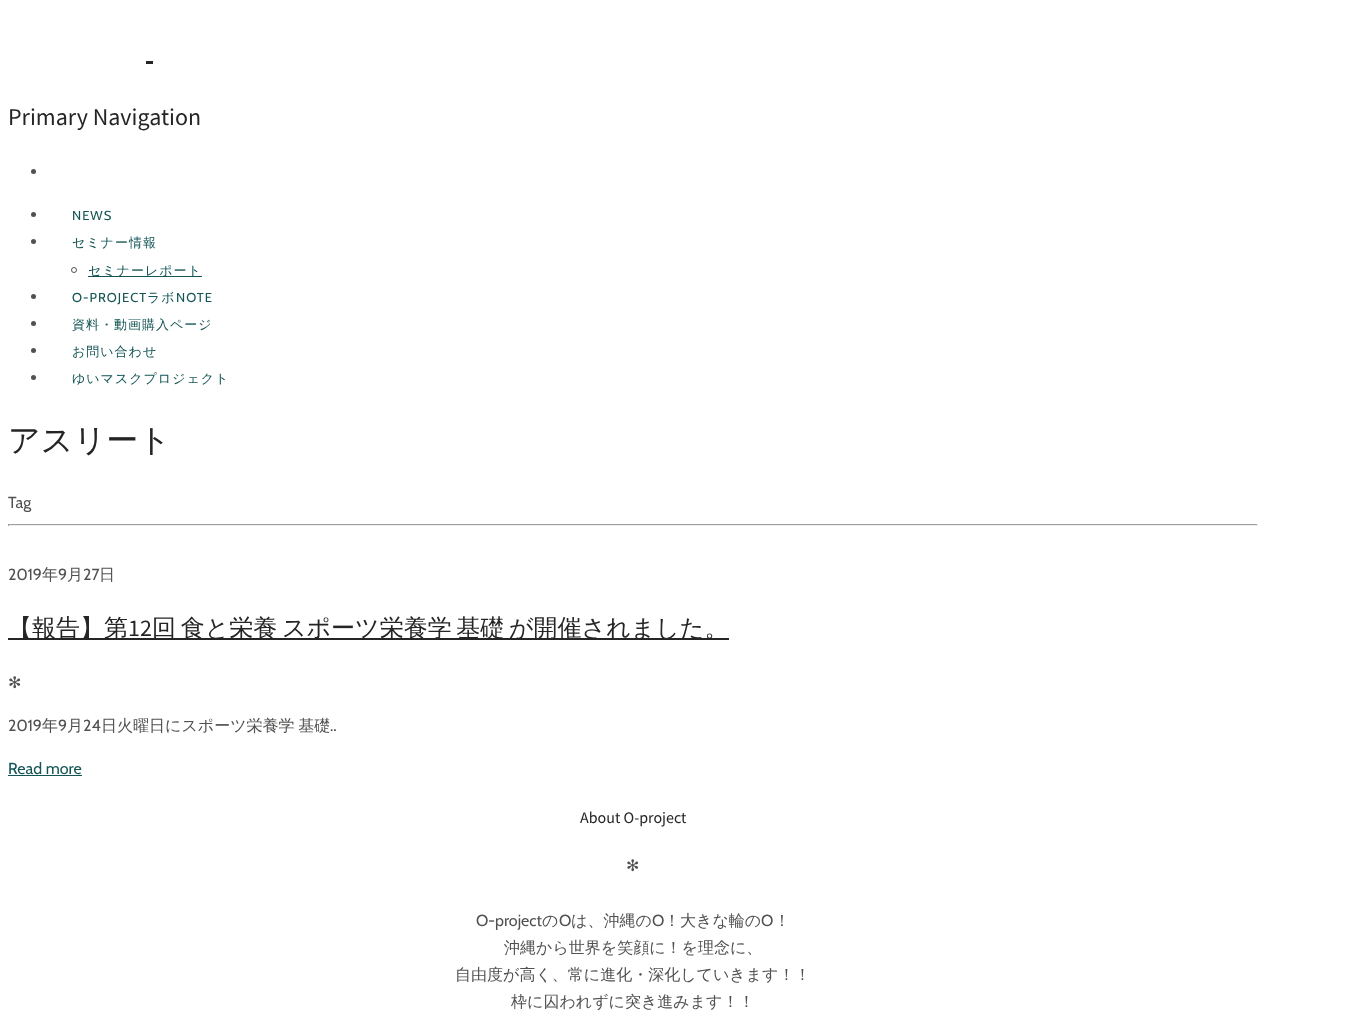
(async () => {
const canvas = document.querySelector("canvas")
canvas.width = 1370
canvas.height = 1017
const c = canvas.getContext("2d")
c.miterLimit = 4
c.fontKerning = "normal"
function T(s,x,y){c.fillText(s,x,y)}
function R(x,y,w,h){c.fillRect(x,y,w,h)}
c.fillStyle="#fff"
R(0,0,1370,1017)
c.fillStyle="#262526"
R(146,61,7,3)
c.font="24px Source Sans Pro"
T("Primary Navigation",8,125)
c.fillStyle="#515150"
c.beginPath()
c.arc(33.5,171.5,2.5,0,7)
c.fill()
c.beginPath()
c.arc(33.5,214.5,2.5,0,7)
c.fill()
c.letterSpacing="1px"
c.font="13px Cabin"
c.fillStyle="#135454"
T("NEWS",72,220)
c.fillStyle="#515150"
c.beginPath()
c.arc(33.5,241.5,2.5,0,7)
c.fill()
c.font="500 13px WenQuanYi Zen Hei"
c.fillStyle="#135454"
T("セミナー情報",72,247)
c.beginPath()
c.arc(74,270,2.5,0,7)
c.strokeStyle="#515150"
c.stroke()
R(88,276,114,1)
T("セミナーレポート",88,275)
c.fillStyle="#515150"
c.beginPath()
c.arc(33.5,296.5,2.5,0,7)
c.fill()
c.font="13px Cabin"
c.fillStyle="#135454"
T("O-PROJECT",72,302)
c.font="500 13px WenQuanYi Zen Hei"
T("ラボ",147,302)
c.font="13px Cabin"
T("NOTE",176,302)
c.fillStyle="#515150"
c.beginPath()
c.arc(33.5,323.5,2.5,0,7)
c.fill()
c.font="500 13px WenQuanYi Zen Hei"
c.fillStyle="#135454"
T("資料・動画購入ページ",72,329)
c.fillStyle="#515150"
c.beginPath()
c.arc(33.5,350.5,2.5,0,7)
c.fill()
c.fillStyle="#135454"
T("お問い合わせ",72,356)
c.fillStyle="#515150"
c.beginPath()
c.arc(33.5,377.5,2.5,0,7)
c.fill()
c.fillStyle="#135454"
T("ゆいマスクプロジェクト",72,383)
c.letterSpacing="0px"
c.font="500 32px WenQuanYi Zen Hei"
c.fillStyle="#262526"
T("アスリート",8,451)
c.font="16px Cabin"
c.fillStyle="#515150"
T("Tag",8,508)
c.fillStyle="#9f9f9f"
R(8,524,1250,1)
c.fillStyle="#eee"
R(1257,524,1,2)
R(8,525,1250,1)
c.fillStyle="#9f9f9f"
R(8,524,1,2)
c.fillStyle="#515150"
T("2019",8,580)
c.font="500 16px WenQuanYi Zen Hei"
T("年",42,580)
c.font="16px Cabin"
T("9",58,580)
c.font="500 16px WenQuanYi Zen Hei"
T("月",67,580)
c.font="16px Cabin"
T("27",83,580)
c.font="500 16px WenQuanYi Zen Hei"
T("日",99,580)
c.fillStyle="#262526"
R(8,638,721,2)
c.font="500 24px WenQuanYi Zen Hei"
T("【報告】第",8,636)
c.font="24px Source Sans Pro"
T("12",128,636)
c.wordSpacing="-2.5px"
c.font="500 24px WenQuanYi Zen Hei"
T("回 食と栄養 スポーツ栄養学 基礎 が開催されました。",152,636)
c.wordSpacing="0px"
c.font="16px DejaVu Sans"
c.fillStyle="#515150"
T("✻",8,688)
c.font="16px Cabin"
T("2019",8,731)
c.font="500 16px WenQuanYi Zen Hei"
T("年",42,731)
c.font="16px Cabin"
T("9",58,731)
c.font="500 16px WenQuanYi Zen Hei"
T("月",67,731)
c.font="16px Cabin"
T("24",83,731)
c.wordSpacing="-1px"
c.font="500 16px WenQuanYi Zen Hei"
T("日火曜日にスポーツ栄養学 基礎",101,731)
c.wordSpacing="0px"
c.font="16px Cabin"
T("..",330,731)
c.fillStyle="#135454"
T("Read more",8,774)
R(8,775,74,1)
c.font="16px Source Sans Pro"
c.fillStyle="#262526"
T("About O-project",580,823)
c.font="16px DejaVu Sans"
c.fillStyle="#515150"
T("✻",626,871)
c.font="16px Cabin"
T("O-project",476,926)
c.font="500 16px WenQuanYi Zen Hei"
T("の",542,926)
c.font="16px Cabin"
T("O",559,926)
c.font="500 16px WenQuanYi Zen Hei"
T("は、沖縄の",571,926)
c.font="16px Cabin"
T("O",652,926)
c.font="500 16px WenQuanYi Zen Hei"
T("！大きな輪の",664,926)
c.font="16px Cabin"
T("O",761,926)
c.font="500 16px WenQuanYi Zen Hei"
T("！",774,926)
T("沖縄から世界を笑顔に！を理念に、",504,953)
T("自由度が高く、常に進化・深化していきます！！",455,980)
T("枠に囚われずに突き進みます！！",511,1007)
})()
